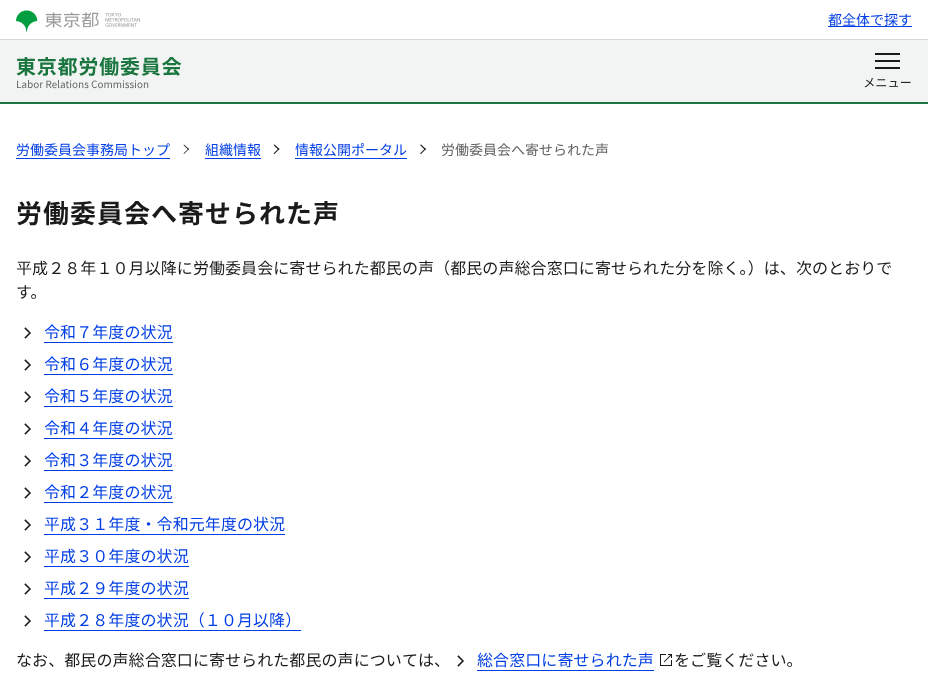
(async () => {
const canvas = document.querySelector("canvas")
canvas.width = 928
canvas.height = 674
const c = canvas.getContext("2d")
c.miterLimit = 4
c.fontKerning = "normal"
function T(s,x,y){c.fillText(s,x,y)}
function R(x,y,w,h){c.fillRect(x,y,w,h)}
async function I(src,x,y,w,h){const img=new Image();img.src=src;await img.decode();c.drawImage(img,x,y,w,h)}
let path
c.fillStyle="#fff"
R(0,0,928,674)
c.fillStyle="#d8d8db"
R(0,39,928,1)
await I("1.png",16,10,124,22)
c.fillStyle="#003ee5"
R(828,26,84,1)
c.font="14px Noto Sans JP"
T("都全体で探す",828,25)
c.fillStyle="#f1f4f2"
R(0,40,928,62)
await I("2.png",16,57,166,32)
await I("3.png",864,53,47,35)
c.fillStyle="#1a753f"
R(0,102,928,2)
c.fillStyle="#003ee5"
T("労働委員会事務局トップ",16,155)
R(16,158,154,1)
c.fillStyle="#1a1a1c"
path = new Path2D("M184 144.5l5 4.5l-.5 1l-5-5z")
c.fill(path)
path = new Path2D("M188.5 148.5l.5 .5l-5 5l-.5-.5z")
c.fill(path)
c.fillStyle="#003ee5"
T("組織情報",205,155)
R(205,158,56,1)
c.fillStyle="#1a1a1c"
path = new Path2D("M274.5 144.5l5 4.5l-1 1l-5-5z")
c.fill(path)
path = new Path2D("M278.5 148.5l1 .5l-5 5l-1-.5z")
c.fill(path)
c.fillStyle="#003ee5"
T("情報公開ポータル",295,155)
R(295,158,112,1)
c.fillStyle="#1a1a1c"
path = new Path2D("M421 144.5l5 4.5l-1 1l-5-5z")
c.fill(path)
path = new Path2D("M425 148.5l1 .5l-5 5l-1-.5z")
c.fill(path)
c.fillStyle="#626264"
T("労働委員会へ寄せられた声",441,155)
c.letterSpacing="1px"
c.font="bold 26px Noto Sans JP"
c.fillStyle="#1a1a1c"
T("労働委員会へ寄せられた声",16,223)
c.letterSpacing="0.08px"
c.font="16px Noto Sans JP"
T("平成２８年１０月以降に労働委員会に寄せられた都民の声（都民の声総合窓口に寄せられた分を除く。）は、次のとおりで",16,274)
T("す。",16,298)
await I("4.png",24,327,7,12)
c.fillStyle="#003ee5"
T("令和７年度の状況",44,338)
R(44,342,129,1)
await I("4.png",24,359,7,12)
T("令和６年度の状況",44,370)
R(44,374,129,1)
await I("4.png",24,391,7,12)
T("令和５年度の状況",44,402)
R(44,406,129,1)
await I("4.png",24,423,7,12)
T("令和４年度の状況",44,434)
R(44,438,129,1)
await I("4.png",24,455,7,12)
T("令和３年度の状況",44,466)
R(44,470,129,1)
await I("4.png",24,487,7,12)
T("令和２年度の状況",44,498)
R(44,502,129,1)
await I("4.png",24,519,7,12)
T("平成３１年度・令和元年度の状況",44,530)
R(44,534,241,1)
await I("4.png",24,551,7,12)
T("平成３０年度の状況",44,562)
R(44,566,145,1)
await I("4.png",24,583,7,12)
T("平成２９年度の状況",44,594)
R(44,598,145,1)
await I("4.png",24,615,7,12)
T("平成２８年度の状況（１０月以降）",44,626)
R(44,630,257,1)
c.fillStyle="#1a1a1c"
T("なお、都民の声総合窓口に寄せられた都民の声については、",16,666)
await I("4.png",457,655,7,12)
c.fillStyle="#003ee5"
T("総合窓口に寄せられた声",477,666)
R(477,670,177,1)
await I("5.png",660,654,12,12)
c.fillStyle="#1a1a1c"
T("をご覧ください。",674,666)
})()
